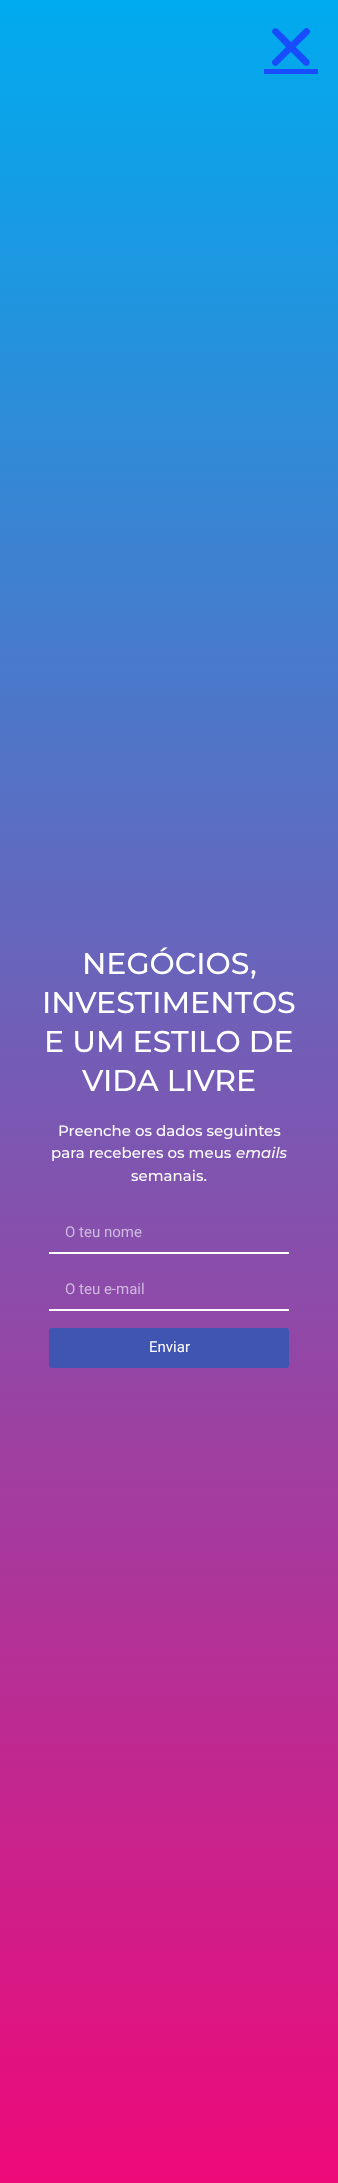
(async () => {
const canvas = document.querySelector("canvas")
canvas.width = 338
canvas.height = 2183
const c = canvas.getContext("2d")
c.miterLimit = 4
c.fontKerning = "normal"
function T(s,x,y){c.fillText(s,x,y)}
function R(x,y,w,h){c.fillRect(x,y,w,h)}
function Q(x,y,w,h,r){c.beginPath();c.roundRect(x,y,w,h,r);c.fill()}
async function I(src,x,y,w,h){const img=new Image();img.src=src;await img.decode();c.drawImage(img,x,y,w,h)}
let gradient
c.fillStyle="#fff"
R(0,0,338,2183)
gradient = c.createLinearGradient(169,0,169,2183)
gradient.addColorStop(0,"#00abef")
gradient.addColorStop(1,"#ee0979")
c.fillStyle = gradient
R(0,0,338,2183)
await I("1.png",271,27,40,39)
c.fillStyle="#184dff"
R(264,69,54,5)
c.font="500 30px Montserrat"
c.fillStyle="#fff"
T("NEGÓCIOS,",82,974)
T("INVESTIMENTOS",42,1013)
T("E UM ESTILO DE",44,1052)
T("VIDA LIVRE",82,1091)
c.font="500 15px Montserrat"
T("Preenche os dados seguintes",58,1136)
T("para receberes os meus",51,1158)
c.font="italic 500 15px Montserrat"
T("emails",236,1158)
c.font="500 15px Montserrat"
T("semanais.",131,1181)
R(49,1252,240,2)
c.font="15px Roboto"
c.fillStyle="#cfb9de"
T("O teu nome",65,1237)
c.fillStyle="#fff"
R(49,1309,240,2)
c.fillStyle="#cfb9de"
T("O teu e-mail",65,1294)
c.fillStyle="#4054b2"
Q(49,1328,240,40,3)
c.fillStyle="#fff"
T("Enviar",149,1352)
})()
